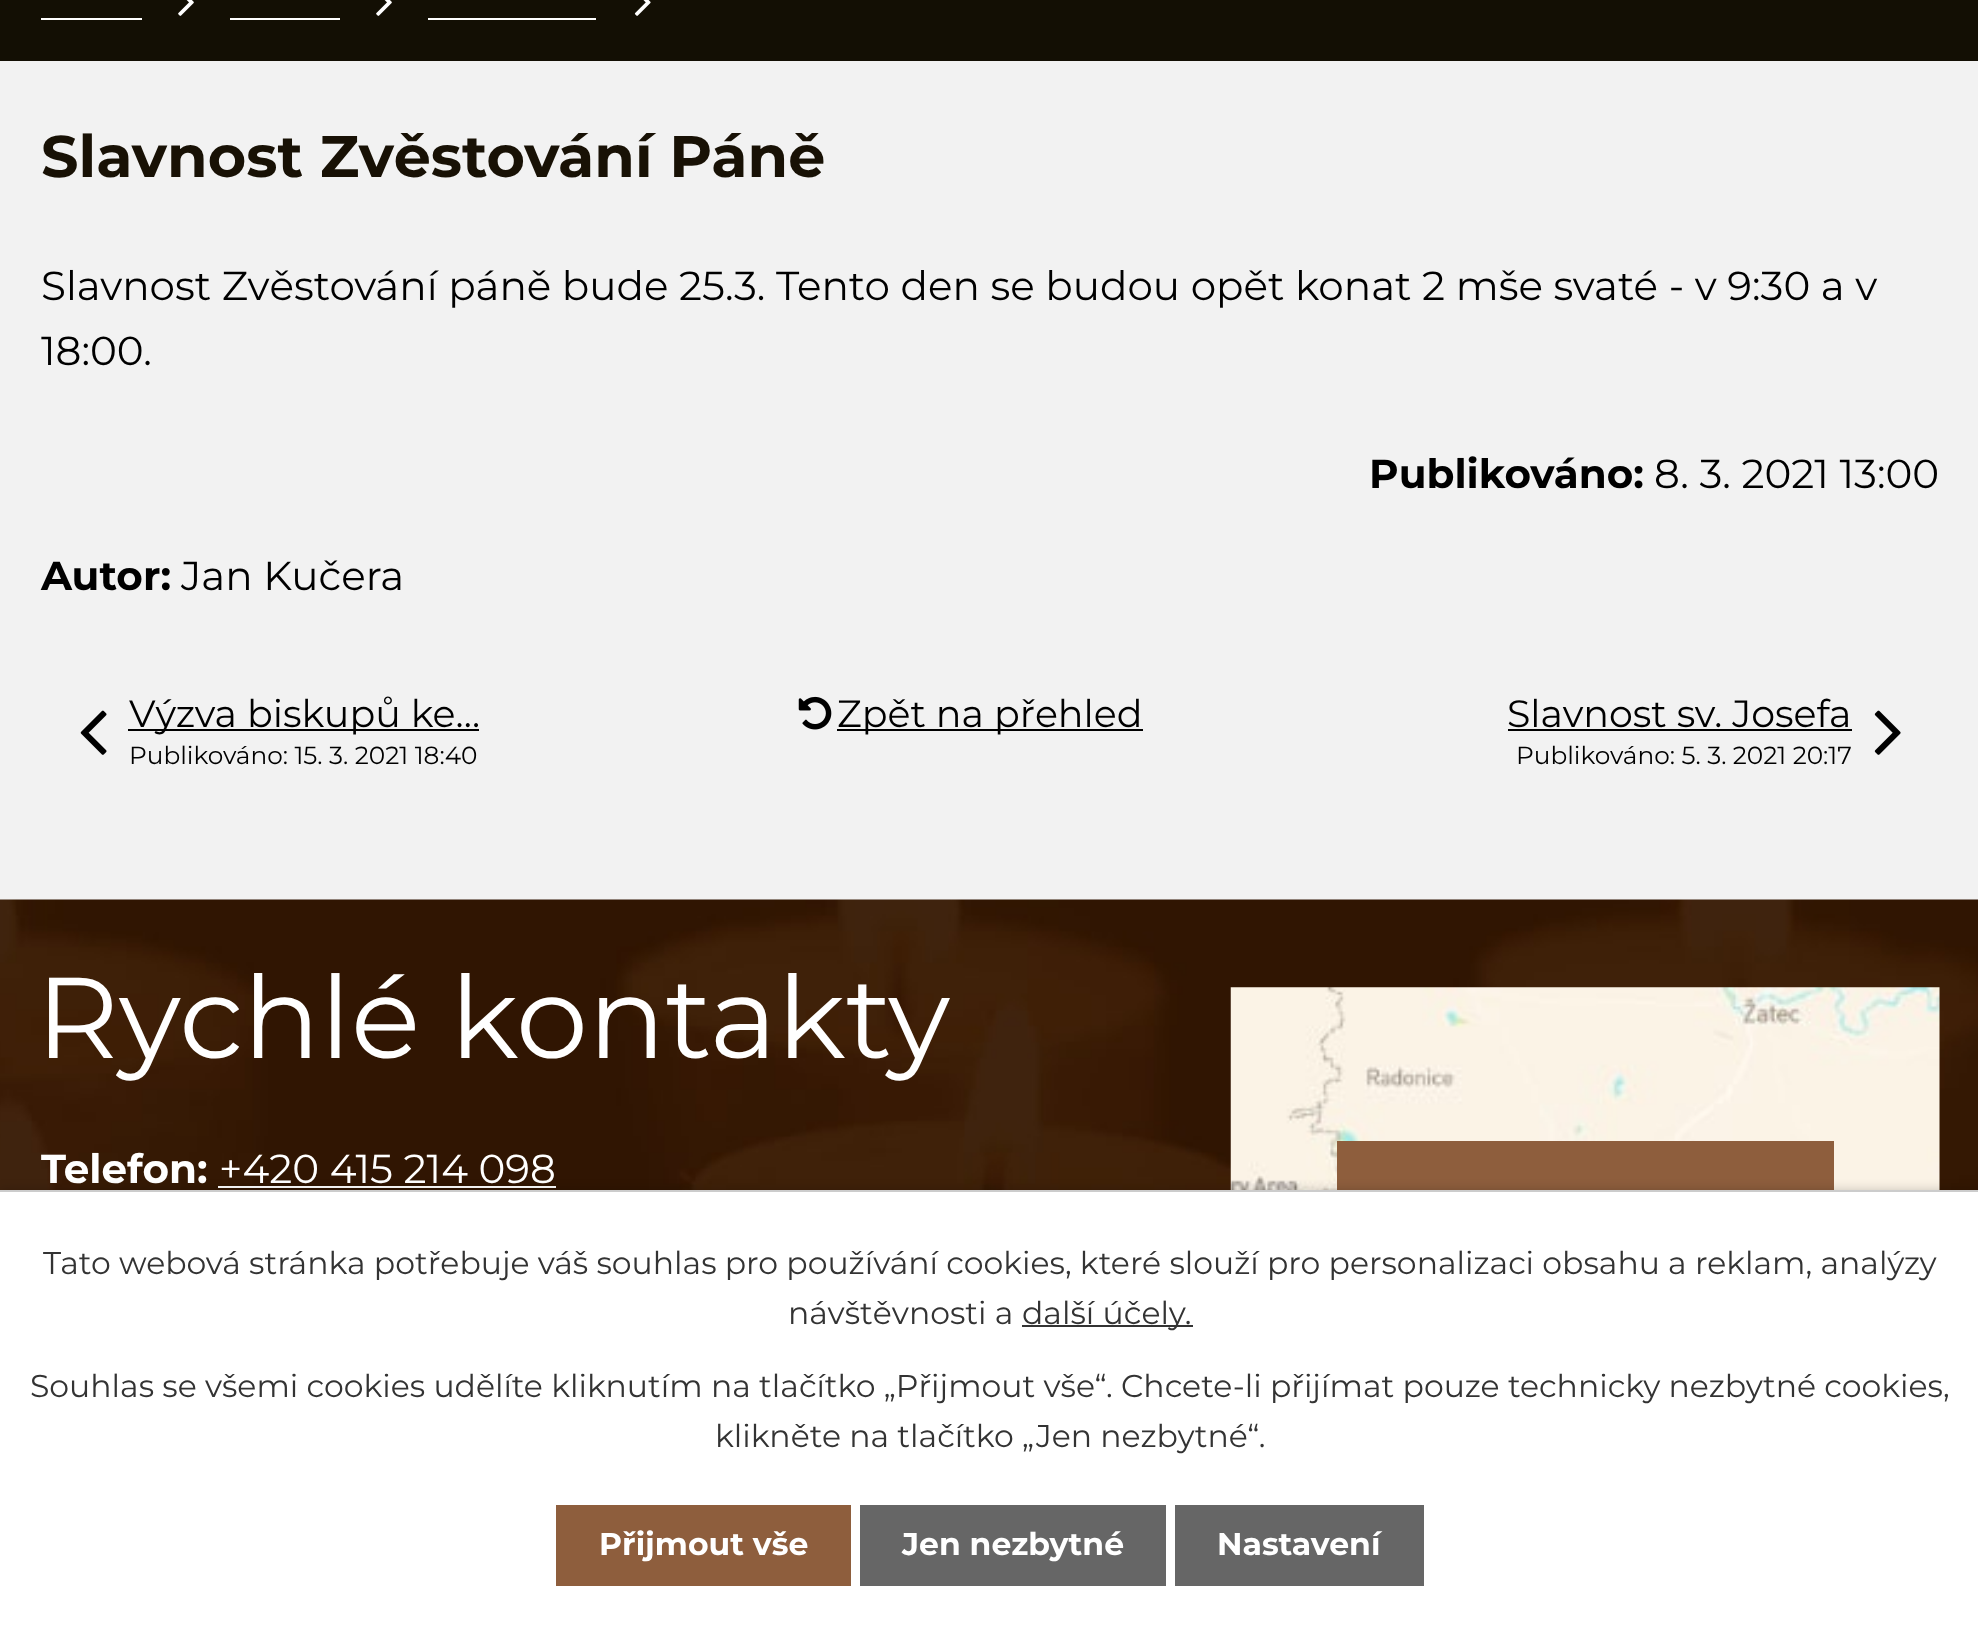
(async () => {
const canvas = document.querySelector("canvas")
canvas.width = 1978
canvas.height = 1629
const c = canvas.getContext("2d")
c.miterLimit = 4
c.fontKerning = "normal"
function T(s,x,y){c.fillText(s,x,y)}
function R(x,y,w,h){c.fillRect(x,y,w,h)}
async function I(src,x,y,w,h){const img=new Image();img.src=src;await img.decode();c.drawImage(img,x,y,w,h)}
c.fillStyle="#f2f2f2"
R(0,0,1978,1629)
c.fillStyle="#130f04"
R(0,0,1978,61)
await I("1.png",178,0,16,16)
await I("1.png",376,0,16,16)
await I("2.png",634,0,17,16)
c.fillStyle="#fff"
R(41,18,101,2)
R(230,18,110,2)
R(428,18,168,2)
c.font="bold 58.75px Montserrat"
c.fillStyle="#181105"
T("Slavnost Zvěstování Páně",41,177)
c.font="40.5px Montserrat"
c.fillStyle="#000"
T("Slavnost Zvěstování páně bude 25.3. Tento den se budou opět konat 2 mše svaté - v 9:30 a v",41,300)
T("18:00.",41,365)
c.font="bold 40.5px Montserrat"
T("Publikováno:",1369,488)
c.font="40.5px Montserrat"
T("8. 3. 2021 13:00",1654,488)
c.font="bold 40.5px Montserrat"
T("Autor:",41,590)
c.font="40.5px Montserrat"
T("Jan Kučera",181,590)
await I("3.png",80,710,27,45)
R(128,729,351,2)
c.font="38px Montserrat"
T("Výzva biskupů ke…",129,727)
c.font="24.75px Montserrat"
T("Publikováno: 15. 3. 2021 18:40",129,764)
await I("4.png",798,696,34,34)
R(837,729,306,2)
c.font="38px Montserrat"
T("Zpět na přehled",837,727)
T("Slavnost sv. Josefa",1507,727)
R(1508,729,344,2)
c.font="24.75px Montserrat"
T("Publikováno: 5. 3. 2021 20:17",1516,764)
await I("5.png",1874,710,27,45)
await I("6.png",0,899,1978,291)
c.font="114.5px Montserrat"
c.fillStyle="#fff"
T("Rychlé kontakty",36,1058)
c.font="bold 40.5px Montserrat"
T("Telefon:",41,1183)
c.font="40.5px Montserrat"
T("+420 415 214 098",219,1183)
R(218,1186,338,2)
await I("7.png",1230,987,710,203)
c.fillStyle="#8e5e3d"
R(1337,1141,497,49)
c.fillStyle="#00000033"
c.filter="blur(5.5px)"
c.beginPath()
c.rect(0,1190,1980,439)
c.fill()
c.filter="none"
c.fillStyle="#fff"
R(0,1192,1978,437)
c.fillStyle="#ccc"
R(0,1190,1978,2)
c.font="31.5px Montserrat"
c.fillStyle="#333"
T("Tato webová stránka potřebuje váš souhlas pro používání cookies, které slouží pro personalizaci obsahu a reklam, analýzy",43,1274)
T("návštěvnosti a",788,1324)
R(1022,1325,171,2)
T("další účely.",1022,1324)
T("Souhlas se všemi cookies udělíte kliknutím na tlačítko „Přijmout vše“. Chcete-li přijímat pouze technicky nezbytné cookies,",30,1397)
T("klikněte na tlačítko „Jen nezbytné“.",715,1447)
c.fillStyle="#8e5e3d"
R(556,1505,295,81)
c.font="bold 31.5px Montserrat"
c.fillStyle="#fff"
T("Přijmout vše",599,1555)
c.fillStyle="#666"
R(860,1505,306,81)
c.fillStyle="#fff"
T("Jen nezbytné",902,1555)
c.fillStyle="#666"
R(1175,1505,249,81)
c.fillStyle="#fff"
T("Nastavení",1217,1555)
})()
